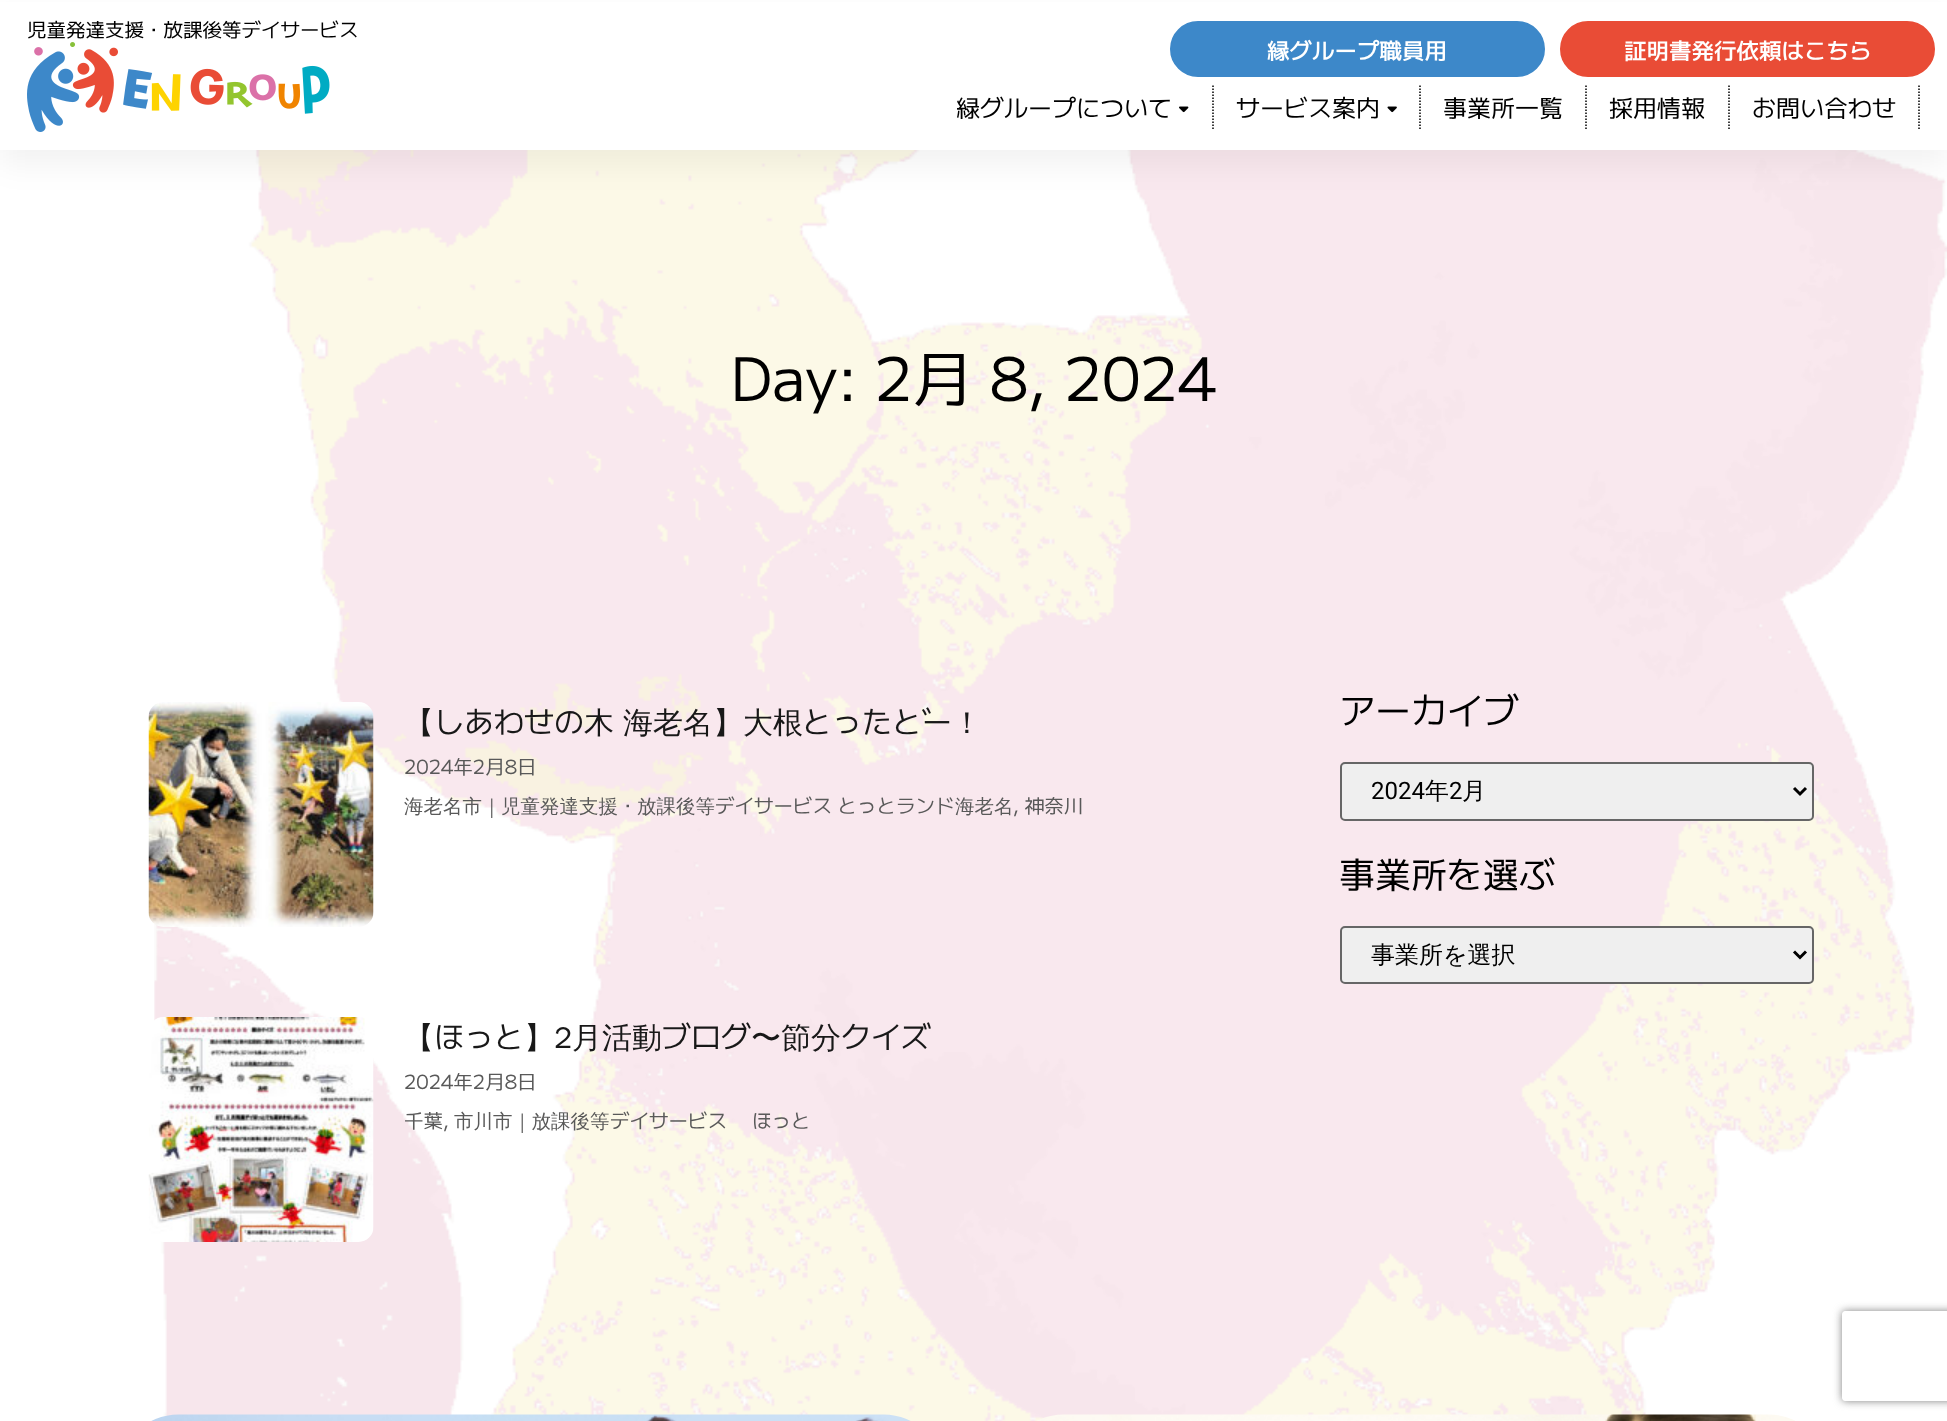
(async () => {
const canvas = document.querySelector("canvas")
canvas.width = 1947
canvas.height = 1421
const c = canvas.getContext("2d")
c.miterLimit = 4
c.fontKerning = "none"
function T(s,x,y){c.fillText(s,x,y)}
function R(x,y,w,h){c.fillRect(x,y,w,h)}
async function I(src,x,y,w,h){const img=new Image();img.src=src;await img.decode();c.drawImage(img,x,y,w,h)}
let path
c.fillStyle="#fff"
R(0,0,1947,1421)
await I("1.png",154,150,1793,1271)
c.fillStyle="#0000000d"
c.filter="blur(15px)"
c.beginPath()
c.rect(0,15,1947,150)
c.fill()
c.filter="none"
c.fillStyle="#fff"
R(0,2,1947,148)
c.font="19.5px 'M PLUS 1'"
c.fillStyle="#000"
T("児童発達支援・放課後等デイサービス",27,37)
await I("2.png",27,42,303,90)
c.fillStyle="#3d88c9"
c.beginPath()
c.roundRect(1171,22,373,54,27)
c.fill()
c.strokeStyle="#3d88c9"
c.lineWidth=2
c.stroke()
c.font="500 22.5px 'M PLUS 1'"
c.fillStyle="#fff"
T("縁グループ職員用",1267,59)
c.fillStyle="#e94c36"
c.beginPath()
c.roundRect(1561,22,373,54,27)
c.fill()
c.strokeStyle="#e94c36"
c.stroke()
c.fillStyle="#fff"
T("証明書発行依頼はこちら",1624,59)
path = new Path2D("M1213 85.5v43.5")
c.strokeStyle="#000"
c.lineWidth=1.5
c.setLineDash([1.5,1.5])
c.stroke(path)
c.font="24px 'M PLUS 1'"
c.fillStyle="#000"
T("緑グループについて",956,117)
await I("3.png",1179,106,10,7)
path = new Path2D("M1420 85.5v43.5")
c.stroke(path)
T("サービス案内",1236,117)
await I("4.png",1387,106,10,7)
path = new Path2D("M1586 85.5v43.5")
c.stroke(path)
T("事業所一覧",1443,117)
path = new Path2D("M1729 85.5v43.5")
c.stroke(path)
T("採用情報",1609,117)
path = new Path2D("M1919 85.5v43.5")
c.stroke(path)
T("お問い合わせ",1752,117)
c.font="60px 'M PLUS 1'"
T("Day: 2月 8, 2024",730,401)
await I("5.png",148,702,226,225)
c.font="500 30px WenQuanYi Zen Hei"
c.fillStyle="#181818"
T("【",404,733)
c.font="30px 'M PLUS 1'"
T("しあわせの",434,733)
c.font="500 30px WenQuanYi Zen Hei"
T("木 海老名】大根",584,733)
c.font="30px 'M PLUS 1'"
T("とったどー",802,733)
c.font="500 30px WenQuanYi Zen Hei"
T("！",952,733)
c.font="19.5px 'M PLUS 1'"
c.fillStyle="#595959"
T("2024年2月8日",404,774)
c.font="500 19.5px WenQuanYi Zen Hei"
T("海老名市｜児童発達支援",404,813)
c.font="19.5px 'M PLUS 1'"
T("・",618,813)
c.font="500 19.5px WenQuanYi Zen Hei"
T("放課後等",637,813)
c.font="19.5px 'M PLUS 1'"
T("デイサービス とっとランド",715,813)
c.font="500 19.5px WenQuanYi Zen Hei"
T("海老名",955,813)
c.font="19.5px 'M PLUS 1'"
T(", 神奈川",1013,813)
await I("6.png",148,1017,226,225)
c.font="500 30px WenQuanYi Zen Hei"
c.fillStyle="#181818"
T("【",404,1048)
c.font="30px 'M PLUS 1'"
T("ほっと",434,1048)
c.font="500 30px WenQuanYi Zen Hei"
T("】2月活動",524,1048)
c.font="30px 'M PLUS 1'"
T("ブログ",661,1048)
c.font="500 30px WenQuanYi Zen Hei"
T("〜節分",751,1048)
c.font="30px 'M PLUS 1'"
T("クイズ",841,1048)
c.font="19.5px 'M PLUS 1'"
c.fillStyle="#595959"
T("2024年2月8日",404,1089)
T("千葉,",404,1128)
c.font="500 19.5px WenQuanYi Zen Hei"
T("市川市｜放課後等",454,1128)
c.font="19.5px 'M PLUS 1'"
T("デイサービス",610,1128)
T("ほっと",752,1128)
c.font="36px 'M PLUS 1'"
c.fillStyle="#000"
T("アーカイブ",1339,724)
c.fillStyle="#efefef"
c.beginPath()
c.roundRect(1341,763,472,57,4)
c.fill()
c.strokeStyle="#666"
c.lineWidth=2
c.setLineDash([])
c.stroke()
path = new Path2D("M1794 788l6 6l6-6")
c.strokeStyle="#000"
c.lineWidth=3
c.stroke(path)
c.font="24px Roboto"
c.fillStyle="#000"
T("2024",1371,799)
c.font="500 24px WenQuanYi Zen Hei"
T("年",1425,799)
c.font="24px Roboto"
T("2",1449,799)
c.font="500 24px WenQuanYi Zen Hei"
T("月",1462,799)
c.font="36px 'M PLUS 1'"
T("事業所を選ぶ",1339,888)
c.fillStyle="#efefef"
c.beginPath()
c.roundRect(1341,927,472,56,4)
c.fill()
c.strokeStyle="#666"
c.lineWidth=2
c.stroke()
path = new Path2D("M1794 951.5l6 6l6-6")
c.strokeStyle="#000"
c.lineWidth=3
c.stroke(path)
c.font="500 24px WenQuanYi Zen Hei"
c.fillStyle="#000"
T("事業所を選択",1371,963)
c.save()
path = new Path2D("M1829 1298h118v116h-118zm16 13h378c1.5 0 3 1.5 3 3v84c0 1.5-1.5 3-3 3h-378c-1.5 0-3-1.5-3-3v-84c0-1.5 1.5-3 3-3z")
c.clip(path,"evenodd")
c.fillStyle="#808080"
c.filter="blur(4px)"
c.beginPath()
c.roundRect(1842,1311,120,90,3)
c.fill()
c.filter="none"
c.restore()
await I("7.png",151,1414,760,7)
await I("8.png",1037,1414,758,7)
})()
